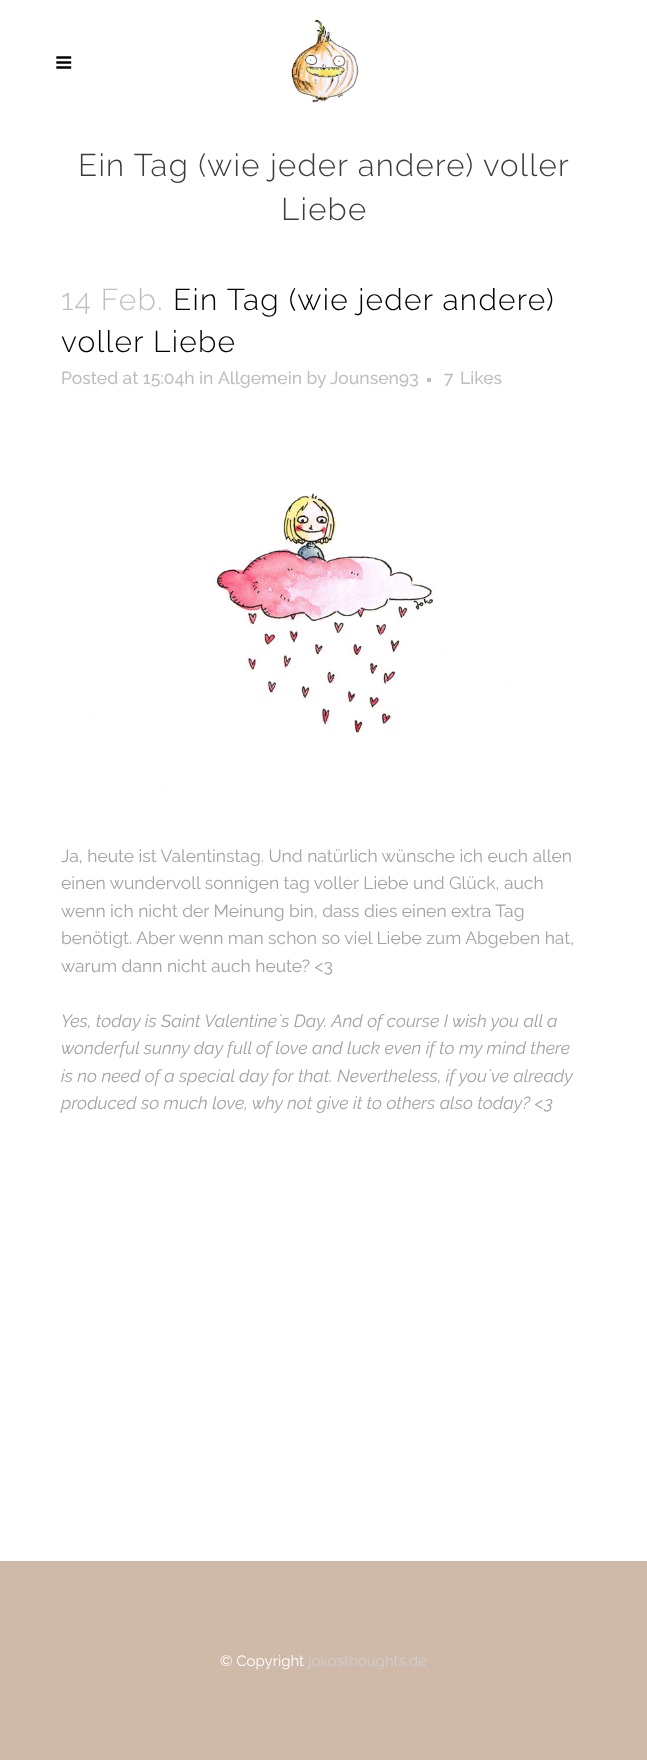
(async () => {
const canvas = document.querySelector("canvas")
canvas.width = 647
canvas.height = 1760
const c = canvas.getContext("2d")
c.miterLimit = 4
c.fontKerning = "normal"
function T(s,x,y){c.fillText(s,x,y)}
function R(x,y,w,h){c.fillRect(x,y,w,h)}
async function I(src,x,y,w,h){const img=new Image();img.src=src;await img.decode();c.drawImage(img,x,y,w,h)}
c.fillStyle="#fff"
R(0,0,647,1760)
await I("1.png",56,56,16,13)
await I("2.png",291,19,68,84)
c.letterSpacing="1.25px"
c.font="300 31.25px Raleway"
c.fillStyle="#3c3c3c"
T("Ein Tag (wie jeder andere) voller",78,176)
T("Liebe",281,220)
c.font="300 30px Raleway"
c.fillStyle="#bebebe"
T("14 Feb.",61,310)
c.fillStyle="#000"
T("Ein Tag (wie jeder andere)",173,310)
T("voller Liebe",61,352)
c.letterSpacing="0px"
c.font="500 17.5px Raleway"
c.fillStyle="#bebebe"
T("Posted at 15:04h in",61,384)
T("Allgemein by",218,384)
T("Jounsen93",330,384)
R(427,378,4,4)
T("7",444,384)
T("Likes",460,384)
await I("3.png",87,491,421,296)
c.font="17.5px Raleway"
c.fillStyle="#a2a2a2"
T("Ja, heute ist Valentinstag. Und natürlich wünsche ich euch allen",61,862)
T("einen wundervoll sonnigen tag voller Liebe und Glück, auch",61,889)
T("wenn ich nicht der Meinung bin, dass dies einen extra Tag",61,917)
T("benötigt. Aber wenn man schon so viel Liebe zum Abgeben hat,",61,944)
T("warum dann nicht auch heute? <3",61,972)
c.font="italic 17.5px Raleway"
T("Yes, today is Saint Valentine`s Day. And of course I wish you all a",61,1027)
T("wonderful sunny day full of love and luck even if to my mind there",61,1054)
T("is no need of a special day for that. Nevertheless, if you`ve already",61,1082)
T("produced so much love, why not give it to others also today? <3",61,1109)
c.fillStyle="#cfb9a8"
R(0,1561,647,199)
c.font="15px Raleway"
c.fillStyle="#fff"
T("© Copyright",220,1666)
c.fillStyle="#cfcfcf"
T("jokosthoughts.de",308,1666)
})()
